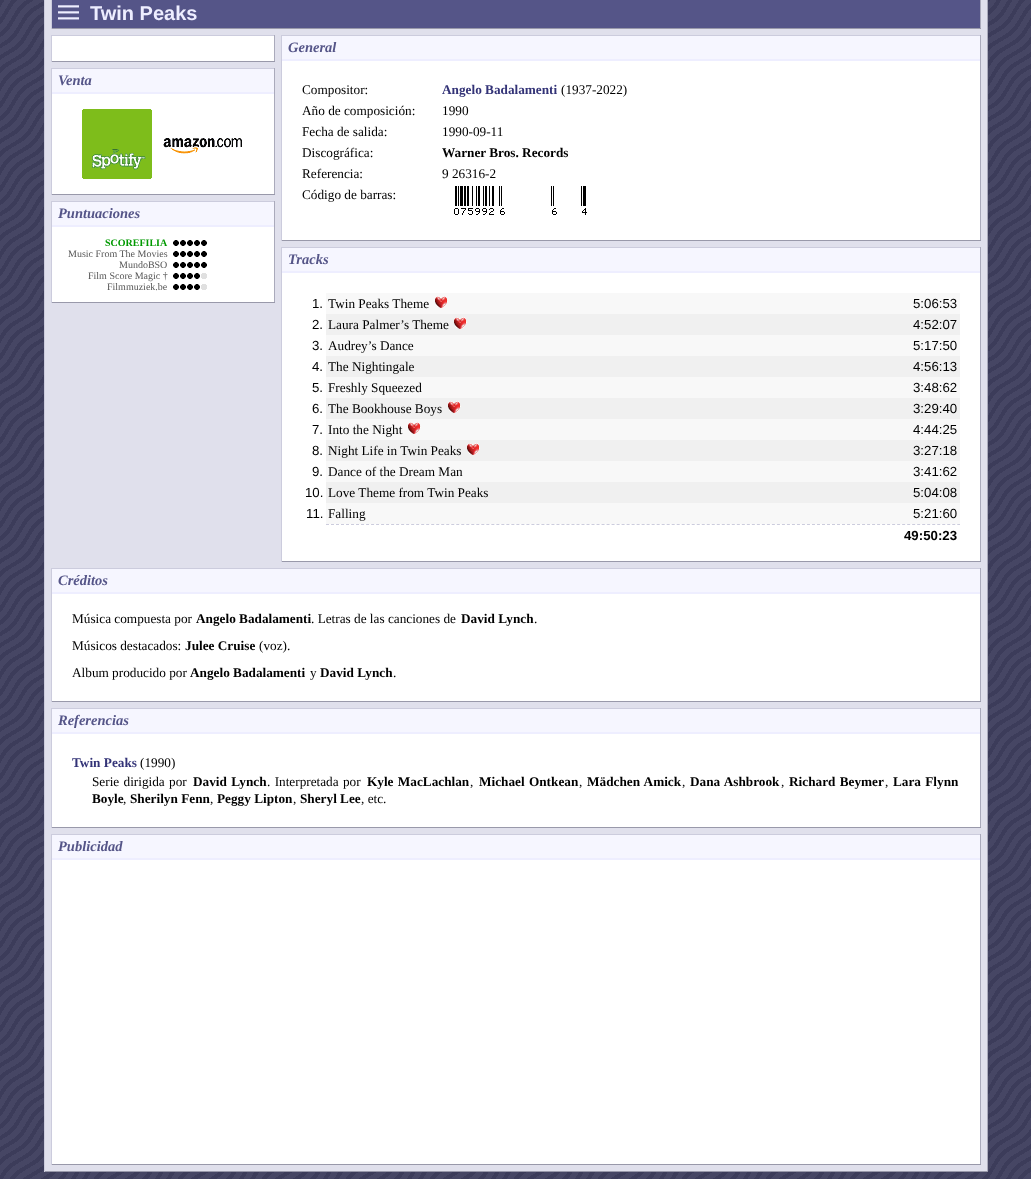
(async () => {
const canvas = document.querySelector("canvas")
canvas.width = 1031
canvas.height = 1179
const c = canvas.getContext("2d")
c.miterLimit = 4
c.fontKerning = "normal"
function T(s,x,y){c.fillText(s,x,y)}
function R(x,y,w,h){c.fillRect(x,y,w,h)}
async function I(src,x,y,w,h){const img=new Image();img.src=src;await img.decode();c.drawImage(img,x,y,w,h)}
let path
c.fillStyle="#fff"
R(0,0,1031,1179)
await I("1.png",0,0,1031,1179)
c.fillStyle="#e0e0ec"
R(45,0,942,1171)
c.fillStyle="#aab"
R(987,0,1,1172)
c.fillStyle="#99a"
R(44,1171,944,1)
c.fillStyle="#ccd"
R(44,0,1,1172)
c.fillStyle="#558"
R(52,0,928,28)
c.fillStyle="#aab"
R(980,0,1,29)
c.fillStyle="#99a"
R(51,28,930,1)
c.fillStyle="#ccd"
R(51,0,1,29)
c.font="bold 21px Liberation Sans"
c.fillStyle="#eef"
T("—",58,12)
T("—",58,18)
T("—",58,24)
c.font="bold 20px Liberation Sans"
T("Twin Peaks",90,20)
c.fillStyle="#fff"
R(52,36,222,25)
c.fillStyle="#ccd"
R(51,35,224,1)
c.fillStyle="#aab"
R(274,35,1,27)
c.fillStyle="#99a"
R(51,61,224,1)
c.fillStyle="#ccd"
R(51,35,1,27)
c.fillStyle="#fff"
R(52,94,222,100)
c.fillStyle="#ccd"
R(51,68,224,1)
c.fillStyle="#aab"
R(274,68,1,127)
c.fillStyle="#99a"
R(51,194,224,1)
c.fillStyle="#ccd"
R(51,68,1,127)
c.fillStyle="#f6f6ff"
R(52,69,222,23)
c.fillStyle="#eef"
R(52,92,222,2)
c.font="italic bold 14.5px Liberation Serif"
c.fillStyle="#558"
T("Venta",58,85)
await I("2.png",82,109,70,70)
await I("3.png",163,138,79,16)
c.fillStyle="#fff"
R(52,227,222,75)
c.fillStyle="#ccd"
R(51,201,224,1)
c.fillStyle="#aab"
R(274,201,1,102)
c.fillStyle="#99a"
R(51,302,224,1)
c.fillStyle="#ccd"
R(51,201,1,102)
c.fillStyle="#f6f6ff"
R(52,202,222,23)
c.fillStyle="#eef"
R(52,225,222,2)
c.fillStyle="#558"
T("Puntuaciones",58,218)
c.font="bold 10px Liberation Serif"
c.fillStyle="#090"
T("SCOREFILIA",105,246)
await I("4.png",173,240,34,6)
c.font="10px Liberation Serif"
c.fillStyle="#555"
T("Music From The Movies",68,257)
await I("4.png",173,251,34,6)
T("MundoBSO",119,268)
await I("4.png",173,262,34,6)
T("Film Score Magic †",88,279)
await I("5.png",173,273,34,6)
T("Filmmuziek.be",107,290)
await I("5.png",173,284,34,6)
c.fillStyle="#fff"
R(282,61,698,179)
c.fillStyle="#ccd"
R(281,35,700,1)
c.fillStyle="#aab"
R(980,35,1,206)
c.fillStyle="#99a"
R(281,240,700,1)
c.fillStyle="#ccd"
R(281,35,1,206)
c.fillStyle="#f6f6ff"
R(282,36,698,23)
c.fillStyle="#eef"
R(282,59,698,2)
c.font="italic bold 14.5px Liberation Serif"
c.fillStyle="#558"
T("General",288,52)
c.font="13.25px Liberation Serif"
c.fillStyle="#000"
T("Compositor:",302,94)
c.font="bold 13.25px Liberation Serif"
c.fillStyle="#337"
T("Angelo Badalamenti",442,94)
c.font="13.25px Liberation Serif"
c.fillStyle="#000"
T("(1937-2022)",561,94)
T("Año de composición:",302,115)
T("1990",442,115)
T("Fecha de salida:",302,136)
T("1990-09-11",442,136)
T("Discográfica:",302,157)
c.font="bold 13.25px Liberation Serif"
T("Warner Bros. Records",442,157)
c.font="13.25px Liberation Serif"
T("Referencia:",302,178)
T("9 26316-2",442,178)
T("Código de barras:",302,199)
await I("6.png",454,186,5,29)
await I("7.png",460,186,6,29)
await I("8.png",467,186,6,29)
await I("9.png",475,186,5,29)
await I("9.png",482,186,5,29)
await I("10.png",489,186,5,29)
await I("11.png",499,186,6,29)
await I("11.png",551,186,6,29)
await I("12.png",581,186,6,29)
c.fillStyle="#fff"
R(282,273,698,288)
c.fillStyle="#ccd"
R(281,247,700,1)
c.fillStyle="#aab"
R(980,247,1,315)
c.fillStyle="#99a"
R(281,561,700,1)
c.fillStyle="#ccd"
R(281,247,1,315)
c.fillStyle="#f6f6ff"
R(282,248,698,23)
c.fillStyle="#eef"
R(282,271,698,2)
c.font="italic bold 14.5px Liberation Serif"
c.fillStyle="#558"
T("Tracks",288,264)
c.fillStyle="#f8f8f8"
R(326,293,634,21)
c.font="13.25px Liberation Sans"
c.fillStyle="#000"
T("1.",312,308)
c.font="13.25px Liberation Serif"
T("Twin Peaks Theme",328,308)
await I("13.png",435,296,13,12)
c.font="13.25px Liberation Sans"
T("5:06:53",913,308)
c.fillStyle="#f0f0f0"
R(326,314,634,21)
c.fillStyle="#000"
T("2.",312,329)
c.font="13.25px Liberation Serif"
T("Laura Palmer’s Theme",328,329)
await I("14.png",454,317,13,12)
c.font="13.25px Liberation Sans"
T("4:52:07",913,329)
c.fillStyle="#f8f8f8"
R(326,335,634,21)
c.fillStyle="#000"
T("3.",312,350)
c.font="13.25px Liberation Serif"
T("Audrey’s Dance",328,350)
c.font="13.25px Liberation Sans"
T("5:17:50",913,350)
c.fillStyle="#f0f0f0"
R(326,356,634,21)
c.fillStyle="#000"
T("4.",312,371)
c.font="13.25px Liberation Serif"
T("The Nightingale",328,371)
c.font="13.25px Liberation Sans"
T("4:56:13",913,371)
c.fillStyle="#f8f8f8"
R(326,377,634,21)
c.fillStyle="#000"
T("5.",312,392)
c.font="13.25px Liberation Serif"
T("Freshly Squeezed",328,392)
c.font="13.25px Liberation Sans"
T("3:48:62",913,392)
c.fillStyle="#f0f0f0"
R(326,398,634,21)
c.fillStyle="#000"
T("6.",312,413)
c.font="13.25px Liberation Serif"
T("The Bookhouse Boys",328,413)
await I("14.png",448,401,13,12)
c.font="13.25px Liberation Sans"
T("3:29:40",913,413)
c.fillStyle="#f8f8f8"
R(326,419,634,21)
c.fillStyle="#000"
T("7.",312,434)
c.font="13.25px Liberation Serif"
T("Into the Night",328,434)
await I("13.png",408,422,13,12)
c.font="13.25px Liberation Sans"
T("4:44:25",913,434)
c.fillStyle="#f0f0f0"
R(326,440,634,21)
c.fillStyle="#000"
T("8.",312,455)
c.font="13.25px Liberation Serif"
T("Night Life in Twin Peaks",328,455)
await I("14.png",467,443,13,12)
c.font="13.25px Liberation Sans"
T("3:27:18",913,455)
c.fillStyle="#f8f8f8"
R(326,461,634,21)
c.fillStyle="#000"
T("9.",312,476)
c.font="13.25px Liberation Serif"
T("Dance of the Dream Man",328,476)
c.font="13.25px Liberation Sans"
T("3:41:62",913,476)
c.fillStyle="#f0f0f0"
R(326,482,634,21)
c.fillStyle="#000"
T("10.",305,497)
c.font="13.25px Liberation Serif"
T("Love Theme from Twin Peaks",328,497)
c.font="13.25px Liberation Sans"
T("5:04:08",913,497)
c.fillStyle="#f8f8f8"
R(326,503,634,21)
c.fillStyle="#000"
T("11.",306,518)
c.font="13.25px Liberation Serif"
T("Falling",328,518)
c.font="13.25px Liberation Sans"
T("5:21:60",913,518)
path = new Path2D("M326 524.5h634")
c.strokeStyle="#ccd"
c.setLineDash([3,2.01])
c.stroke(path)
c.font="bold 13.25px Liberation Sans"
T("49:50:23",904,540)
c.fillStyle="#fff"
R(52,594,928,107)
c.fillStyle="#ccd"
R(51,568,930,1)
c.fillStyle="#aab"
R(980,568,1,134)
c.fillStyle="#99a"
R(51,701,930,1)
c.fillStyle="#ccd"
R(51,568,1,134)
c.fillStyle="#f6f6ff"
R(52,569,928,23)
c.fillStyle="#eef"
R(52,592,928,2)
c.font="italic bold 14.5px Liberation Serif"
c.fillStyle="#558"
T("Créditos",58,585)
c.font="13.25px Liberation Serif"
c.fillStyle="#000"
T("Música compuesta por",72,623)
c.font="bold 13.25px Liberation Serif"
T("Angelo Badalamenti",196,623)
c.font="13.25px Liberation Serif"
T(". Letras de las canciones de",311,623)
c.font="bold 13.25px Liberation Serif"
T("David Lynch",461,623)
c.font="13.25px Liberation Serif"
T(".",534,623)
T("Músicos destacados:",72,650)
c.font="bold 13.25px Liberation Serif"
T("Julee Cruise",185,650)
c.font="13.25px Liberation Serif"
T("(voz).",259,650)
T("Album producido por",72,677)
c.font="bold 13.25px Liberation Serif"
T("Angelo Badalamenti",190,677)
c.font="13.25px Liberation Serif"
T("y",310,677)
c.font="bold 13.25px Liberation Serif"
T("David Lynch",320,677)
c.font="13.25px Liberation Serif"
T(".",393,677)
c.fillStyle="#fff"
R(52,734,928,93)
c.fillStyle="#ccd"
R(51,708,930,1)
c.fillStyle="#aab"
R(980,708,1,120)
c.fillStyle="#99a"
R(51,827,930,1)
c.fillStyle="#ccd"
R(51,708,1,120)
c.fillStyle="#f6f6ff"
R(52,709,928,23)
c.fillStyle="#eef"
R(52,732,928,2)
c.font="italic bold 14.5px Liberation Serif"
c.fillStyle="#558"
T("Referencias",58,725)
c.font="bold 13.25px Liberation Serif"
c.fillStyle="#337"
T("Twin Peaks",72,767)
c.font="13.25px Liberation Serif"
c.fillStyle="#000"
T("(1990)",140,767)
c.wordSpacing="1px"
T("Serie dirigida por",92,786)
c.font="bold 13.25px Liberation Serif"
T("David Lynch",193,786)
c.font="13.25px Liberation Serif"
T(". Interpretada por",267,786)
c.font="bold 13.25px Liberation Serif"
T("Kyle MacLachlan",367,786)
c.wordSpacing="0px"
c.font="13.25px Liberation Serif"
T(",",470,786)
c.wordSpacing="1px"
c.font="bold 13.25px Liberation Serif"
T("Michael Ontkean",479,786)
c.wordSpacing="0px"
c.font="13.25px Liberation Serif"
T(",",579,786)
c.wordSpacing="1px"
c.font="bold 13.25px Liberation Serif"
T("Mädchen Amick",587,786)
c.wordSpacing="0px"
c.font="13.25px Liberation Serif"
T(",",682,786)
c.wordSpacing="1px"
c.font="bold 13.25px Liberation Serif"
T("Dana Ashbrook",690,786)
c.wordSpacing="0px"
c.font="13.25px Liberation Serif"
T(",",781,786)
c.wordSpacing="1px"
c.font="bold 13.25px Liberation Serif"
T("Richard Beymer",789,786)
c.wordSpacing="0px"
c.font="13.25px Liberation Serif"
T(",",885,786)
c.wordSpacing="1px"
c.font="bold 13.25px Liberation Serif"
T("Lara Flynn",893,786)
c.wordSpacing="0px"
T("Boyle",92,803)
c.font="13.25px Liberation Serif"
T(",",123,803)
c.font="bold 13.25px Liberation Serif"
T("Sherilyn Fenn",130,803)
c.font="13.25px Liberation Serif"
T(",",210,803)
c.font="bold 13.25px Liberation Serif"
T("Peggy Lipton",217,803)
c.font="13.25px Liberation Serif"
T(",",293,803)
c.font="bold 13.25px Liberation Serif"
T("Sheryl Lee",300,803)
c.font="13.25px Liberation Serif"
T(", etc.",361,803)
c.fillStyle="#fff"
R(52,860,928,304)
c.fillStyle="#ccd"
R(51,834,930,1)
c.fillStyle="#aab"
R(980,834,1,331)
c.fillStyle="#99a"
R(51,1164,930,1)
c.fillStyle="#ccd"
R(51,834,1,331)
c.fillStyle="#f6f6ff"
R(52,835,928,23)
c.fillStyle="#eef"
R(52,858,928,2)
c.font="italic bold 14.5px Liberation Serif"
c.fillStyle="#558"
T("Publicidad",58,851)
})()
